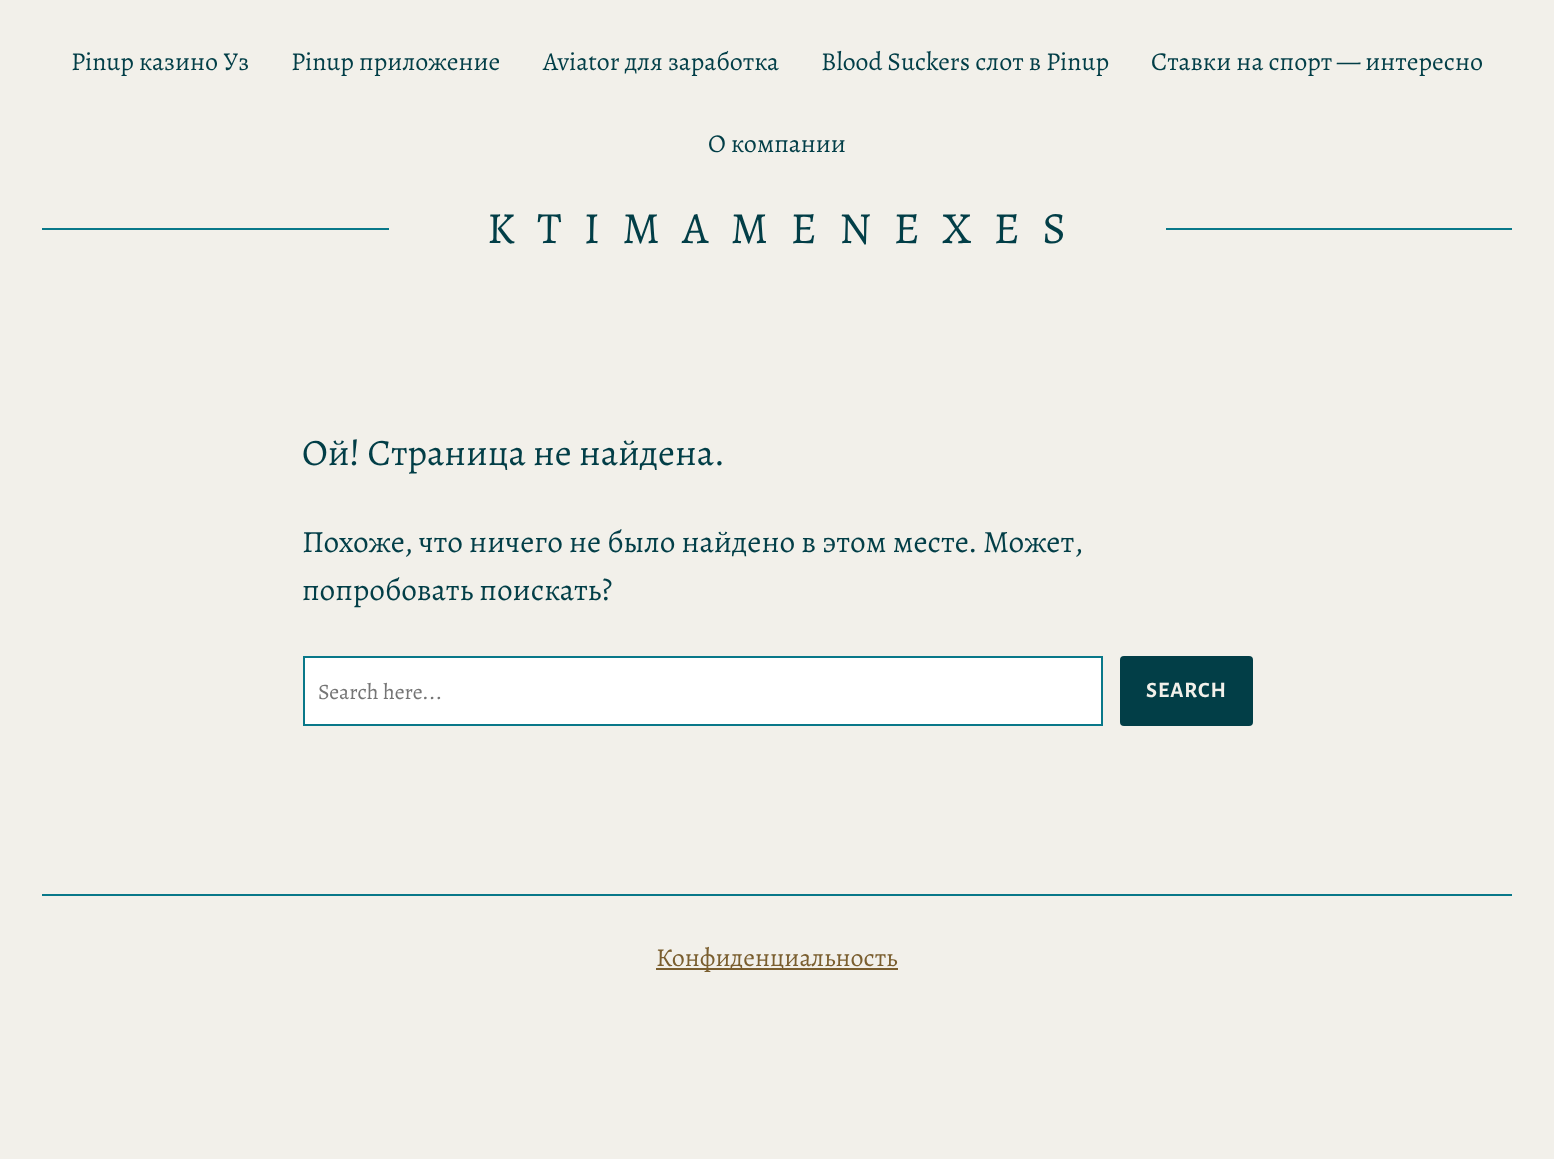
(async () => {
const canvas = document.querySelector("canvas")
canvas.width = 1554
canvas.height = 1159
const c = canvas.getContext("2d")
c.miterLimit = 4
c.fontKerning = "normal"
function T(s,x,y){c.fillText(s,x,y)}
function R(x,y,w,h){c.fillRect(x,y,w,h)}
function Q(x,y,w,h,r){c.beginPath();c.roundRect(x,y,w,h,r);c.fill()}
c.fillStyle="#f2f0ea"
R(0,0,1554,1159)
c.font="25.8px Alegreya"
c.fillStyle="#023e47"
T("Pinup казино Уз",71,70)
T("Pinup приложение",291,70)
T("Aviator для заработка",543,70)
T("Blood Suckers слот в Pinup",821,70)
T("Ставки на спорт — интересно",1151,70)
T("О компании",708,152)
c.fillStyle="#097889"
R(42,228,347,2)
c.letterSpacing="22.25px"
c.font="44.6px Alegreya"
c.fillStyle="#023e47"
T("KTIMAMENEXES",487,243)
c.fillStyle="#097889"
R(1166,228,346,2)
c.letterSpacing="0px"
c.font="37.25px Alegreya"
c.fillStyle="#023e47"
T("Ой! Страница не найдена.",302,465)
c.font="31px Alegreya"
T("Похоже, что ничего не было найдено в этом месте. Может,",302,552)
T("попробовать поискать?",302,600)
c.fillStyle="#fff"
c.beginPath()
c.rect(304,657,798,68)
c.fill()
c.strokeStyle="#097889"
c.lineWidth=2
c.stroke()
c.font="22px Alegreya"
c.fillStyle="#757575"
T("Search here...",318,699)
c.fillStyle="#023e47"
Q(1120,656,133,70,4)
c.letterSpacing="1px"
c.font="bold 22px Alegreya Sans"
c.fillStyle="#f2f0ea"
T("SEARCH",1146,697)
c.fillStyle="#097889"
R(42,894,1470,2)
c.fillStyle="#7a5e2f"
R(656,968,242,2)
c.letterSpacing="0px"
c.font="25.8px Alegreya"
T("Конфиденциальность",656,966)
})()
